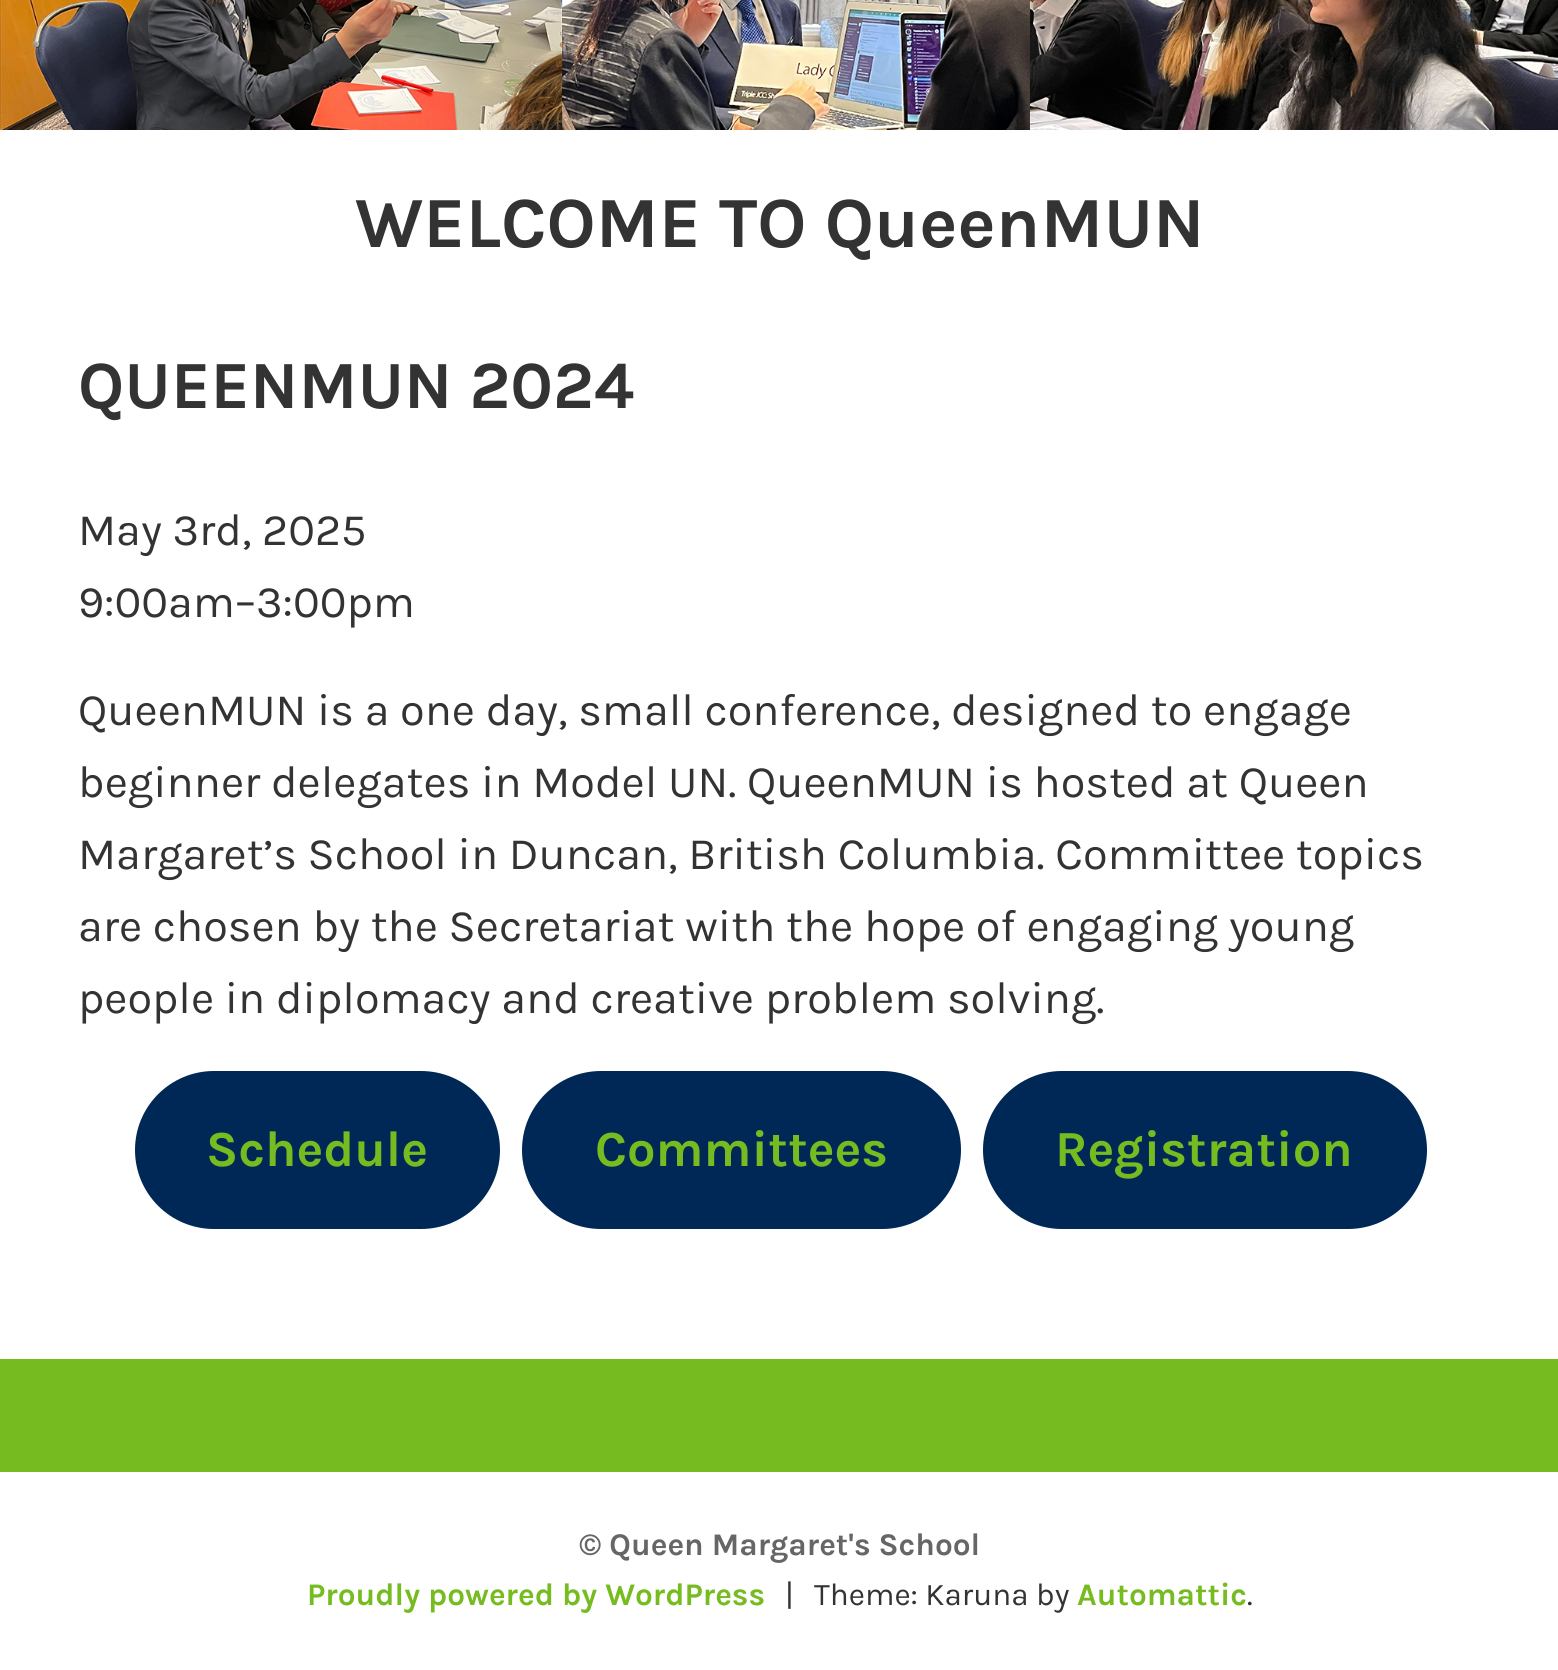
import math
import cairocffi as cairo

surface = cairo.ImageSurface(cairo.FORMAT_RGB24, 1558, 1670)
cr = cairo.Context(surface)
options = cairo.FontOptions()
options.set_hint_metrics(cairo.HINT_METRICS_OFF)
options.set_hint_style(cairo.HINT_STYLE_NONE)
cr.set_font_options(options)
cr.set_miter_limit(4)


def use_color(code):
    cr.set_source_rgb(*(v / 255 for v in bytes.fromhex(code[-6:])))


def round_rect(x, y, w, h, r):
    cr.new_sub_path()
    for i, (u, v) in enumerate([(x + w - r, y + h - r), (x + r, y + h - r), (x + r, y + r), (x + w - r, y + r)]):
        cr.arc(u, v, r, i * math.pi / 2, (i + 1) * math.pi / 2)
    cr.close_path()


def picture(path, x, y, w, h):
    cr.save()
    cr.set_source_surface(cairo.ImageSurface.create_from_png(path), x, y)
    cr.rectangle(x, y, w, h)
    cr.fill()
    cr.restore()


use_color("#ffffff")
cr.paint()
picture("img1.png", 0, 0, 1558, 130)
cr.select_font_face("Karla", cairo.FONT_SLANT_NORMAL, cairo.FONT_WEIGHT_BOLD)
cr.set_font_size(72)
use_color("#333333")
cr.move_to(355, 247)
cr.show_text("WELCOME TO QueenMUN")
cr.set_font_size(67.5)
cr.move_to(78, 408)
cr.show_text("QUEENMUN 2024")
cr.select_font_face("Karla")
cr.set_font_size(45)
cr.move_to(78, 545)
cr.show_text("May 3rd, 2025")
cr.move_to(78, 617)
cr.show_text("9:00am–3:00pm")
cr.move_to(78, 725)
cr.show_text("QueenMUN is a one day, small conference, designed to engage")
cr.move_to(78, 797)
cr.show_text("beginner delegates in Model UN. QueenMUN is hosted at Queen")
cr.move_to(78, 869)
cr.show_text("Margaret’s School in Duncan, British Columbia. Committee topics")
cr.move_to(78, 941)
cr.show_text("are chosen by the Secretariat with the hope of engaging young")
cr.move_to(78, 1013)
cr.show_text("people in diplomacy and creative problem solving.")
use_color("#002856")
round_rect(135, 1071, 365, 158, 79)
cr.fill()
cr.select_font_face("Karla", cairo.FONT_SLANT_NORMAL, cairo.FONT_WEIGHT_BOLD)
cr.set_font_size(50.5)
use_color("#76bc21")
cr.move_to(206, 1166)
cr.show_text("Schedule")
use_color("#002856")
round_rect(522, 1071, 439, 158, 79)
cr.fill()
use_color("#76bc21")
cr.move_to(595, 1166)
cr.show_text("Committees")
use_color("#002856")
round_rect(983, 1071, 444, 158, 79)
cr.fill()
use_color("#76bc21")
cr.move_to(1055, 1166)
cr.show_text("Registration")
cr.rectangle(0, 1359, 1558, 113)
cr.fill()
cr.set_font_size(31.5)
use_color("#666666")
cr.move_to(579, 1555)
cr.show_text("© Queen Margaret's School")
use_color("#76bc21")
cr.move_to(307, 1605)
cr.show_text("Proudly powered by WordPress")
cr.select_font_face("Karla")
use_color("#333333")
cr.move_to(785, 1605)
cr.show_text("|")
cr.move_to(814, 1605)
cr.show_text("Theme: Karuna by")
cr.select_font_face("Karla", cairo.FONT_SLANT_NORMAL, cairo.FONT_WEIGHT_BOLD)
use_color("#76bc21")
cr.move_to(1077, 1605)
cr.show_text("Automattic")
cr.select_font_face("Karla")
use_color("#333333")
cr.move_to(1247, 1605)
cr.show_text(".")
surface.write_to_png("result.png")
